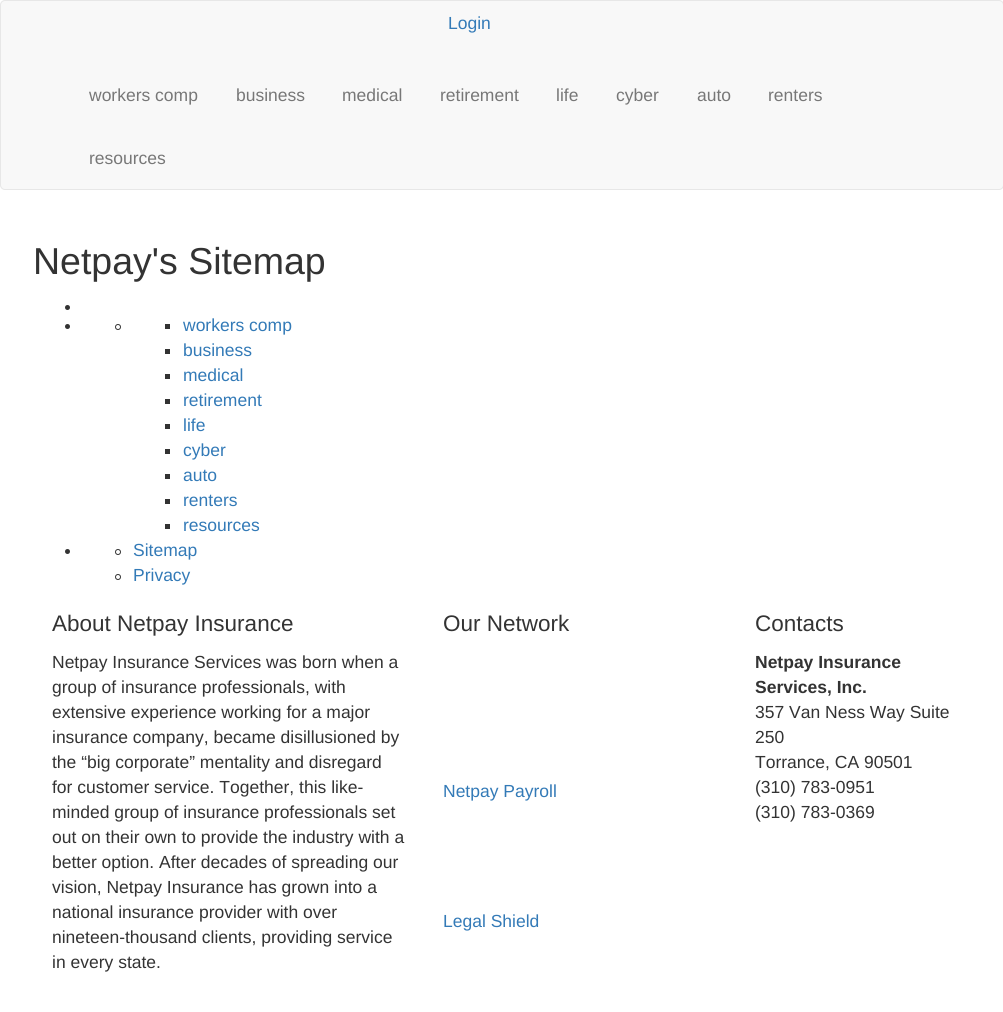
import math
import cairocffi as cairo

surface = cairo.ImageSurface(cairo.FORMAT_RGB24, 1003, 1012)
cr = cairo.Context(surface)
options = cairo.FontOptions()
options.set_hint_metrics(cairo.HINT_METRICS_OFF)
options.set_hint_style(cairo.HINT_STYLE_NONE)
cr.set_font_options(options)
cr.set_miter_limit(4)


def use_color(code):
    cr.set_source_rgb(*(v / 255 for v in bytes.fromhex(code[-6:])))


def round_rect(x, y, w, h, r):
    cr.new_sub_path()
    for i, (u, v) in enumerate([(x + w - r, y + h - r), (x + r, y + h - r), (x + r, y + r), (x + w - r, y + r)]):
        cr.arc(u, v, r, i * math.pi / 2, (i + 1) * math.pi / 2)
    cr.close_path()


use_color("#ffffff")
cr.paint()
use_color("#f8f8f8")
round_rect(0.5, 0.5, 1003, 189, 4.5)
cr.fill_preserve()
use_color("#e7e7e7")
cr.set_line_width(1)
cr.stroke()
cr.select_font_face("Liberation Sans")
cr.set_font_size(17.5)
use_color("#337ab7")
cr.move_to(448, 29)
cr.show_text("Login")
use_color("#777777")
cr.move_to(89, 101)
cr.show_text("workers comp")
cr.move_to(236, 101)
cr.show_text("business")
cr.move_to(342, 101)
cr.show_text("medical")
cr.move_to(440, 101)
cr.show_text("retirement")
cr.move_to(556, 101)
cr.show_text("life")
cr.move_to(616, 101)
cr.show_text("cyber")
cr.move_to(697, 101)
cr.show_text("auto")
cr.move_to(768, 101)
cr.show_text("renters")
cr.move_to(89, 164)
cr.show_text("resources")
cr.set_font_size(37.5)
use_color("#333333")
cr.move_to(33, 274)
cr.show_text("Netpay's Sitemap")
cr.new_path()
cr.arc(67.5, 307.5, 2.5, 0, 2 * math.pi)
cr.fill()
cr.arc(67.5, 326.5, 2.5, 0, 2 * math.pi)
cr.fill()
cr.arc(118, 327, 2.5, 0, 2 * math.pi)
cr.stroke()
cr.rectangle(165, 324, 5, 5)
cr.fill()
cr.set_font_size(17.5)
use_color("#337ab7")
cr.move_to(183, 331)
cr.show_text("workers comp")
use_color("#333333")
cr.rectangle(165, 349, 5, 5)
cr.fill()
use_color("#337ab7")
cr.move_to(183, 356)
cr.show_text("business")
use_color("#333333")
cr.rectangle(165, 374, 5, 5)
cr.fill()
use_color("#337ab7")
cr.move_to(183, 381)
cr.show_text("medical")
use_color("#333333")
cr.rectangle(165, 399, 5, 5)
cr.fill()
use_color("#337ab7")
cr.move_to(183, 406)
cr.show_text("retirement")
use_color("#333333")
cr.rectangle(165, 424, 5, 5)
cr.fill()
use_color("#337ab7")
cr.move_to(183, 431)
cr.show_text("life")
use_color("#333333")
cr.rectangle(165, 449, 5, 5)
cr.fill()
use_color("#337ab7")
cr.move_to(183, 456)
cr.show_text("cyber")
use_color("#333333")
cr.rectangle(165, 474, 5, 5)
cr.fill()
use_color("#337ab7")
cr.move_to(183, 481)
cr.show_text("auto")
use_color("#333333")
cr.rectangle(165, 499, 5, 5)
cr.fill()
use_color("#337ab7")
cr.move_to(183, 506)
cr.show_text("renters")
use_color("#333333")
cr.rectangle(165, 524, 5, 5)
cr.fill()
use_color("#337ab7")
cr.move_to(183, 531)
cr.show_text("resources")
use_color("#333333")
cr.new_path()
cr.arc(67.5, 551.5, 2.5, 0, 2 * math.pi)
cr.fill()
cr.arc(118, 552, 2.5, 0, 2 * math.pi)
cr.stroke()
use_color("#337ab7")
cr.move_to(133, 556)
cr.show_text("Sitemap")
cr.new_path()
cr.arc(118, 577, 2.5, 0, 2 * math.pi)
use_color("#333333")
cr.stroke()
use_color("#337ab7")
cr.move_to(133, 581)
cr.show_text("Privacy")
cr.set_font_size(22.5)
use_color("#333333")
cr.move_to(52, 631)
cr.show_text("About Netpay Insurance")
cr.set_font_size(17.5)
cr.move_to(52, 668)
cr.show_text("Netpay Insurance Services was born when a")
cr.move_to(52, 693)
cr.show_text("group of insurance professionals, with")
cr.move_to(52, 718)
cr.show_text("extensive experience working for a major")
cr.move_to(52, 743)
cr.show_text("insurance company, became disillusioned by")
cr.move_to(52, 768)
cr.show_text("the “big corporate” mentality and disregard")
cr.move_to(52, 793)
cr.show_text("for customer service. Together, this like-")
cr.move_to(52, 818)
cr.show_text("minded group of insurance professionals set")
cr.move_to(52, 843)
cr.show_text("out on their own to provide the industry with a")
cr.move_to(52, 868)
cr.show_text("better option. After decades of spreading our")
cr.move_to(52, 893)
cr.show_text("vision, Netpay Insurance has grown into a")
cr.move_to(52, 918)
cr.show_text("national insurance provider with over")
cr.move_to(52, 943)
cr.show_text("nineteen-thousand clients, providing service")
cr.move_to(52, 968)
cr.show_text("in every state.")
cr.set_font_size(22.5)
cr.move_to(443, 631)
cr.show_text("Our Network")
cr.set_font_size(17.5)
use_color("#337ab7")
cr.move_to(443, 797)
cr.show_text("Netpay Payroll")
cr.move_to(443, 927)
cr.show_text("Legal Shield")
cr.set_font_size(22.5)
use_color("#333333")
cr.move_to(755, 631)
cr.show_text("Contacts")
cr.select_font_face("Liberation Sans", cairo.FONT_SLANT_NORMAL, cairo.FONT_WEIGHT_BOLD)
cr.set_font_size(17.5)
cr.move_to(755, 668)
cr.show_text("Netpay Insurance")
cr.move_to(755, 693)
cr.show_text("Services, Inc.")
cr.select_font_face("Liberation Sans")
cr.move_to(755, 718)
cr.show_text("357 Van Ness Way Suite")
cr.move_to(755, 743)
cr.show_text("250")
cr.move_to(755, 768)
cr.show_text("Torrance, CA 90501")
cr.move_to(755, 793)
cr.show_text("(310) 783-0951")
cr.move_to(755, 818)
cr.show_text("(310) 783-0369")
surface.write_to_png("result.png")
